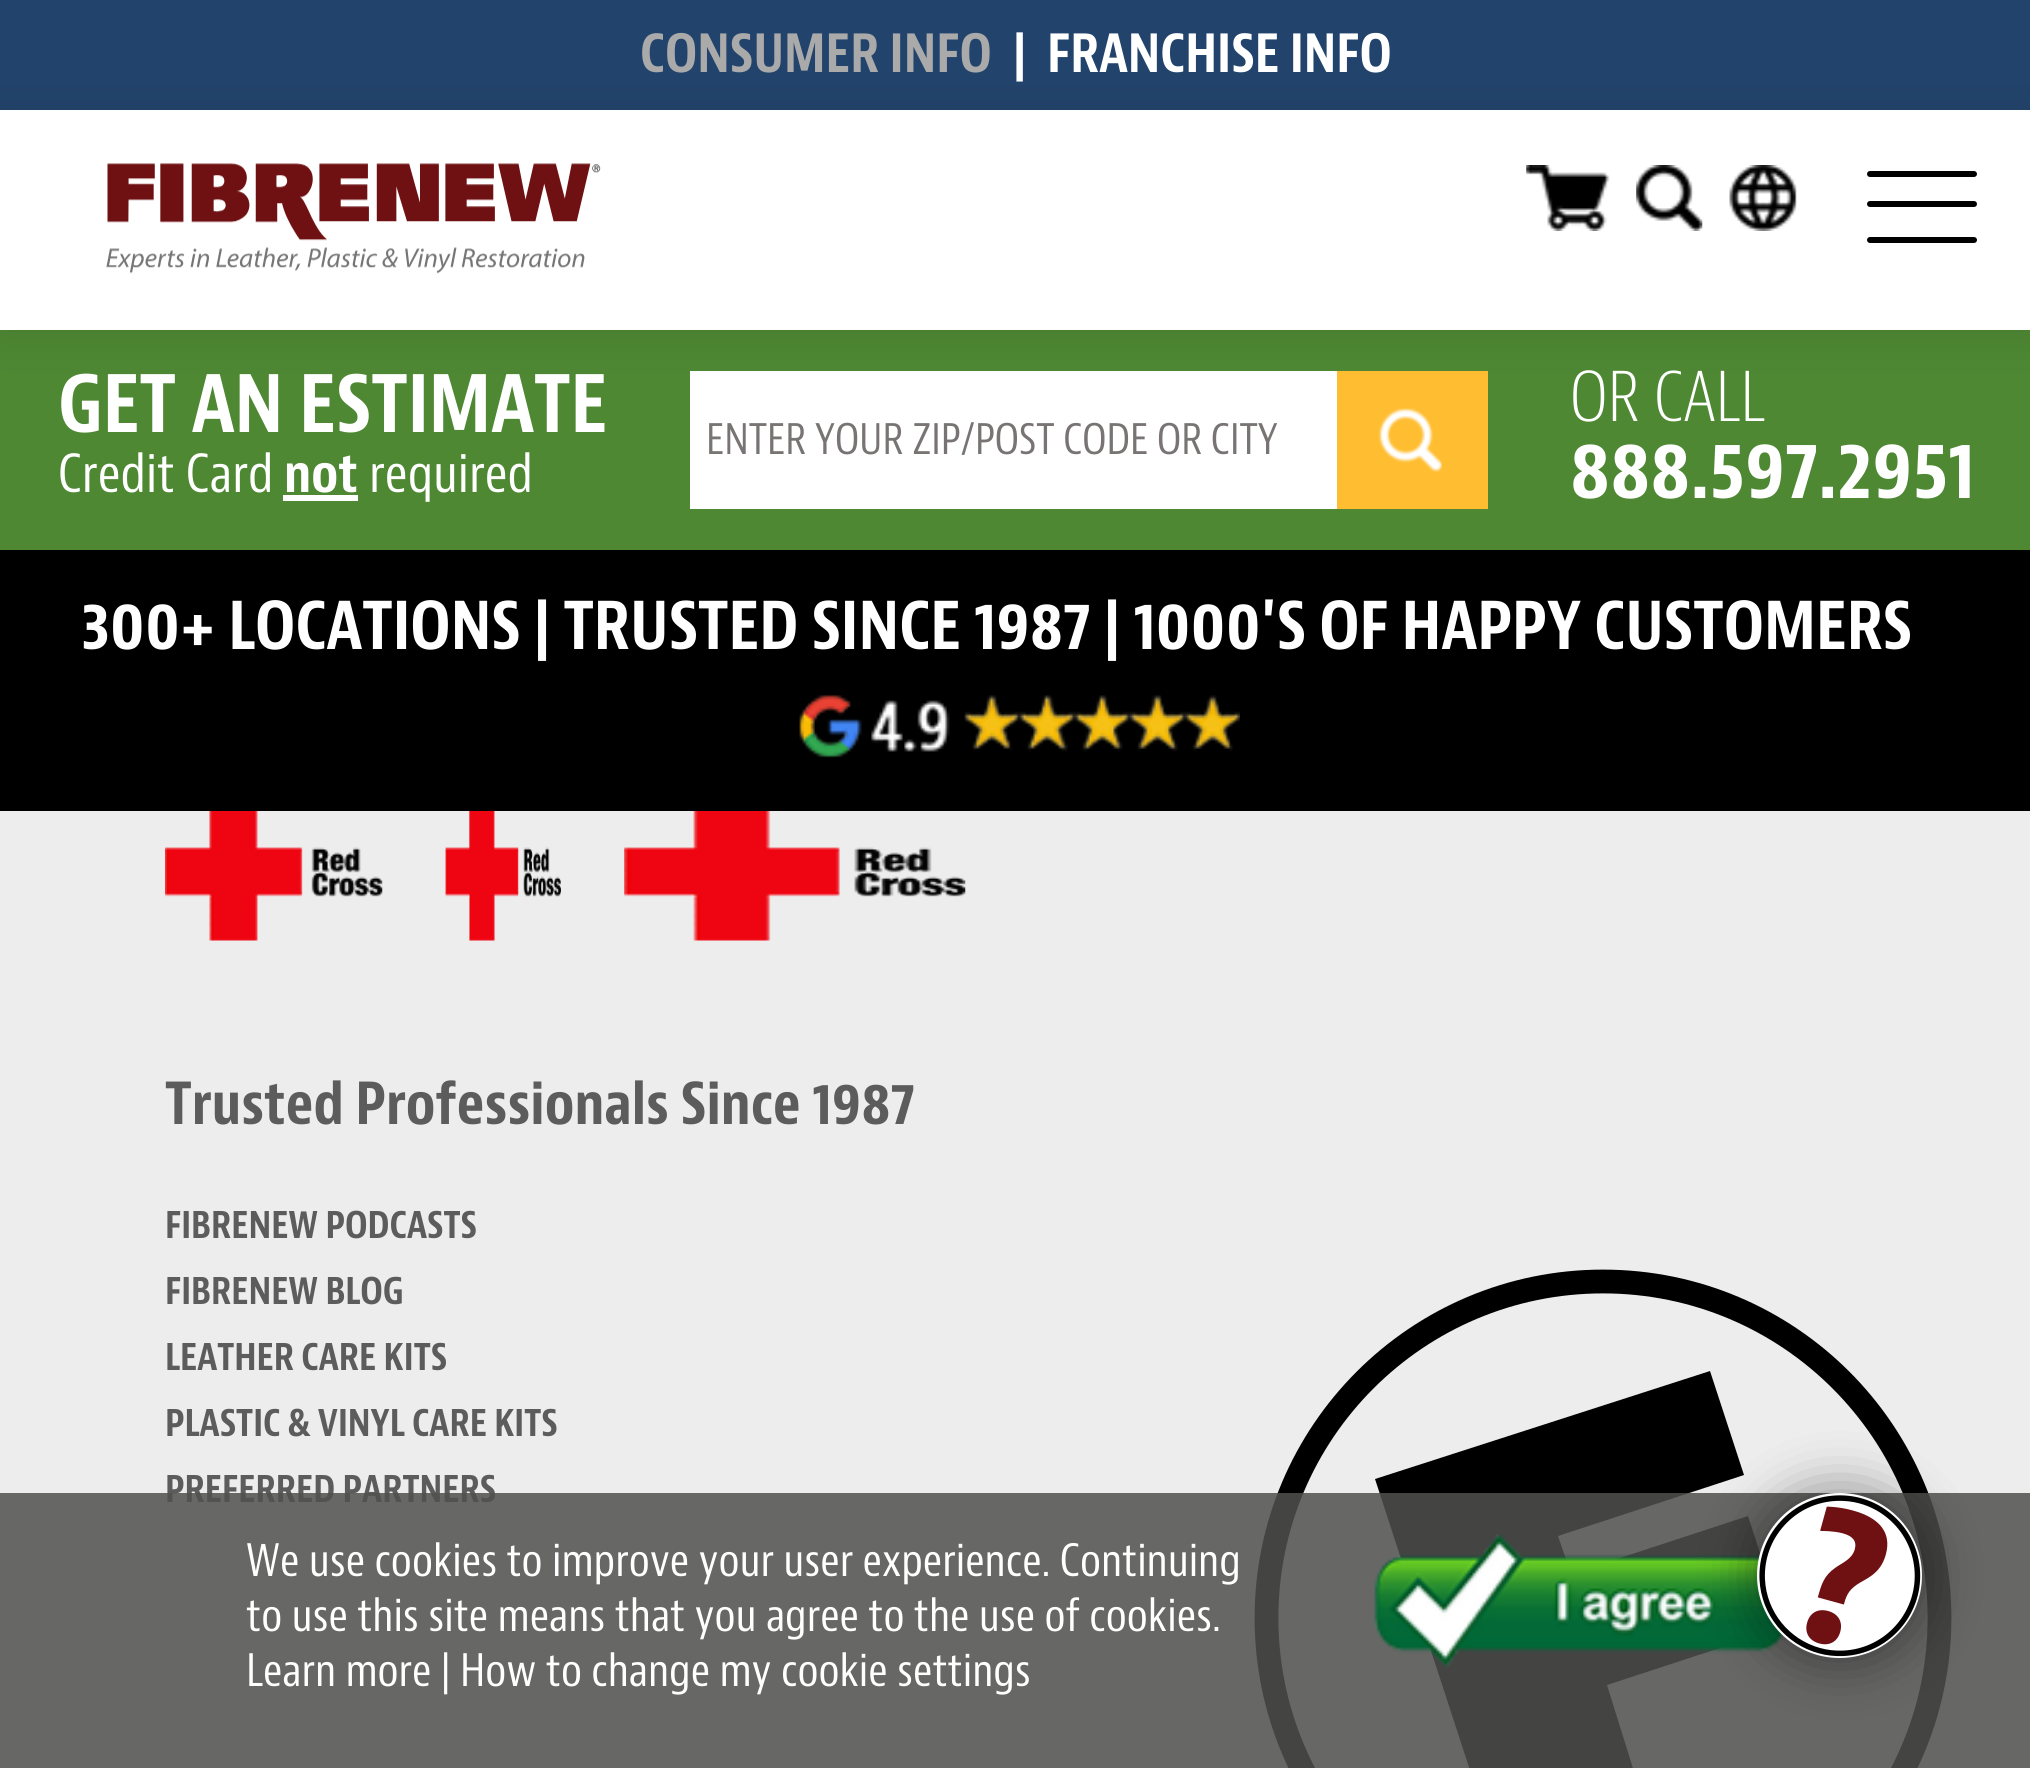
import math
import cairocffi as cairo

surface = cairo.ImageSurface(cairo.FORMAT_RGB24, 2030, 1768)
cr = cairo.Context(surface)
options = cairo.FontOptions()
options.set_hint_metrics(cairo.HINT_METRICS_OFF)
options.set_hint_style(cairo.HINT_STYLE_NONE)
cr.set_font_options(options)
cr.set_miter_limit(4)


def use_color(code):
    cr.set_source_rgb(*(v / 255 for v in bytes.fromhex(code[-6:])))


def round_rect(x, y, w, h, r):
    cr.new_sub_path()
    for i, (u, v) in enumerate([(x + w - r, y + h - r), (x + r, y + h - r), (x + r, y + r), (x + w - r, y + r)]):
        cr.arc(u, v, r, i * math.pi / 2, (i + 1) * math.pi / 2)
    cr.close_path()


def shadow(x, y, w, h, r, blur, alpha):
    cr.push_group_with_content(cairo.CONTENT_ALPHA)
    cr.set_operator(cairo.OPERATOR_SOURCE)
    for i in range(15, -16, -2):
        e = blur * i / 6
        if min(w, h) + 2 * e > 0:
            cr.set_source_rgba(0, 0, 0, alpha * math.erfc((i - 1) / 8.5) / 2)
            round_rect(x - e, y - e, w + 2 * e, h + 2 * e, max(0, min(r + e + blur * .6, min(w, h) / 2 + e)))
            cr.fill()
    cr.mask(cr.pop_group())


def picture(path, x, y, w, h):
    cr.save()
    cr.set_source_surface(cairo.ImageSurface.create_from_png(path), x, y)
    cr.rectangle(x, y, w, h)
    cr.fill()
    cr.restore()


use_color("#ededed")
cr.paint()
use_color("#22436b")
cr.rectangle(0, 0, 2030, 110)
cr.fill()
cr.select_font_face("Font", cairo.FONT_SLANT_NORMAL, cairo.FONT_WEIGHT_BOLD)
cr.set_font_size(55)
use_color("#aaaaaa")
cr.move_to(640, 72)
cr.show_text("CONSUMER INFO")
use_color("#ffffff")
cr.move_to(1013, 72)
cr.show_text("|")
cr.move_to(1047, 72)
cr.show_text("FRANCHISE INFO")
use_color("#4e8833")
cr.rectangle(0, 330, 2030, 220)
cr.fill()
use_color("#ffffff")
cr.rectangle(690, 371, 647, 138)
cr.fill()
use_color("#ffbd31")
cr.rectangle(1337, 371, 151, 138)
cr.fill()
use_color("#000000")
shadow(0, 116, 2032, 220, 0, 20.5, 0.1)
use_color("#ffffff")
cr.rectangle(0, 110, 2030, 220)
cr.fill()
picture("img1.png", 106, 163, 495, 111)
picture("img2.png", 1526, 165, 84, 66)
picture("img3.png", 1636, 165, 67, 66)
picture("img4.png", 1729, 165, 68, 66)
use_color("#000000")
round_rect(1867, 171, 110, 6, 3)
cr.fill()
round_rect(1867, 201, 110, 6, 3)
cr.fill()
round_rect(1867, 237, 110, 6, 3)
cr.fill()
cr.set_font_size(82.5)
use_color("#ffffff")
cr.move_to(58, 432)
cr.show_text("GET AN ESTIMATE")
cr.select_font_face("Font")
cr.set_font_size(55)
cr.move_to(58, 492)
cr.show_text("Credit Card")
cr.select_font_face("Font", cairo.FONT_SLANT_NORMAL, cairo.FONT_WEIGHT_BOLD)
cr.move_to(284, 492)
cr.show_text("not")
cr.rectangle(283, 495, 75, 6)
cr.fill()
cr.select_font_face("Font")
cr.move_to(369, 492)
cr.show_text("required")
cr.set_font_size(44)
use_color("#787474")
cr.move_to(706, 454)
cr.show_text("ENTER YOUR ZIP/POST CODE OR CITY")
picture("img5.png", 1378, 408, 64, 64)
cr.select_font_face("Font Light")
cr.set_font_size(71.5)
use_color("#ffffff")
cr.move_to(1570, 421)
cr.show_text("OR CALL")
cr.select_font_face("Font", cairo.FONT_SLANT_NORMAL, cairo.FONT_WEIGHT_BOLD)
cr.set_font_size(82.5)
cr.move_to(1570, 498)
cr.show_text("888.597.2951")
use_color("#000000")
cr.rectangle(0, 550, 2030, 261)
cr.fill()
cr.set_font_size(68.75)
use_color("#ffffff")
cr.move_to(81, 649)
cr.show_text("300+ LOCATIONS | TRUSTED SINCE 1987 | 1000'S OF HAPPY CUSTOMERS")
picture("img6.png", 799, 695, 441, 63)
use_color("#000000")
cr.new_path()
cr.move_to(1509, 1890)
cr.line_to(1375, 1479)
cr.line_to(1710, 1371)
cr.line_to(1744, 1475)
cr.line_to(1558, 1536)
cr.line_to(1571, 1574)
cr.line_to(1748, 1516)
cr.line_to(1784, 1627)
cr.line_to(1607, 1685)
cr.line_to(1656, 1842)
cr.close_path()
cr.fill()
cr.arc(1603, 1618, 336.5, 0, 2 * math.pi)
cr.set_line_width(23.8)
cr.stroke()
picture("img7.png", 165, 811, 218, 130)
picture("img8.png", 445, 811, 116, 130)
picture("img9.png", 624, 811, 342, 130)
cr.set_font_size(60.5)
use_color("#5c5c5c")
cr.move_to(165, 1124)
cr.show_text("Trusted Professionals Since 1987")
cr.set_font_size(38.5)
cr.move_to(165, 1238)
cr.show_text("FIBRENEW PODCASTS")
cr.move_to(165, 1304)
cr.show_text("FIBRENEW BLOG")
cr.move_to(165, 1370)
cr.show_text("LEATHER CARE KITS")
cr.move_to(165, 1436)
cr.show_text("PLASTIC & VINYL CARE KITS")
cr.move_to(165, 1502)
cr.show_text("PREFERRED PARTNERS")
cr.set_source_rgba(0.314, 0.314, 0.31, 0.85)
cr.rectangle(0, 1493, 2030, 275)
cr.fill()
cr.select_font_face("Font")
cr.set_font_size(46.75)
use_color("#ffffff")
cr.move_to(246, 1576)
cr.show_text("We use cookies to improve your user experience. Continuing")
cr.move_to(246, 1631)
cr.show_text("to use this site means that you agree to the use of cookies.")
cr.move_to(246, 1686)
cr.show_text("Learn more | How to change my cookie settings")
picture("img10.png", 1374, 1534, 411, 133)
use_color("#000000")
shadow(1749, 1485, 182, 182, 91, 25, 0.35)
use_color("#ffffff")
cr.arc(1839.5, 1575.5, 82.5, 0, 2 * math.pi)
cr.fill()
picture("img11.png", 1759, 1495, 162, 162)
surface.write_to_png("result.png")
